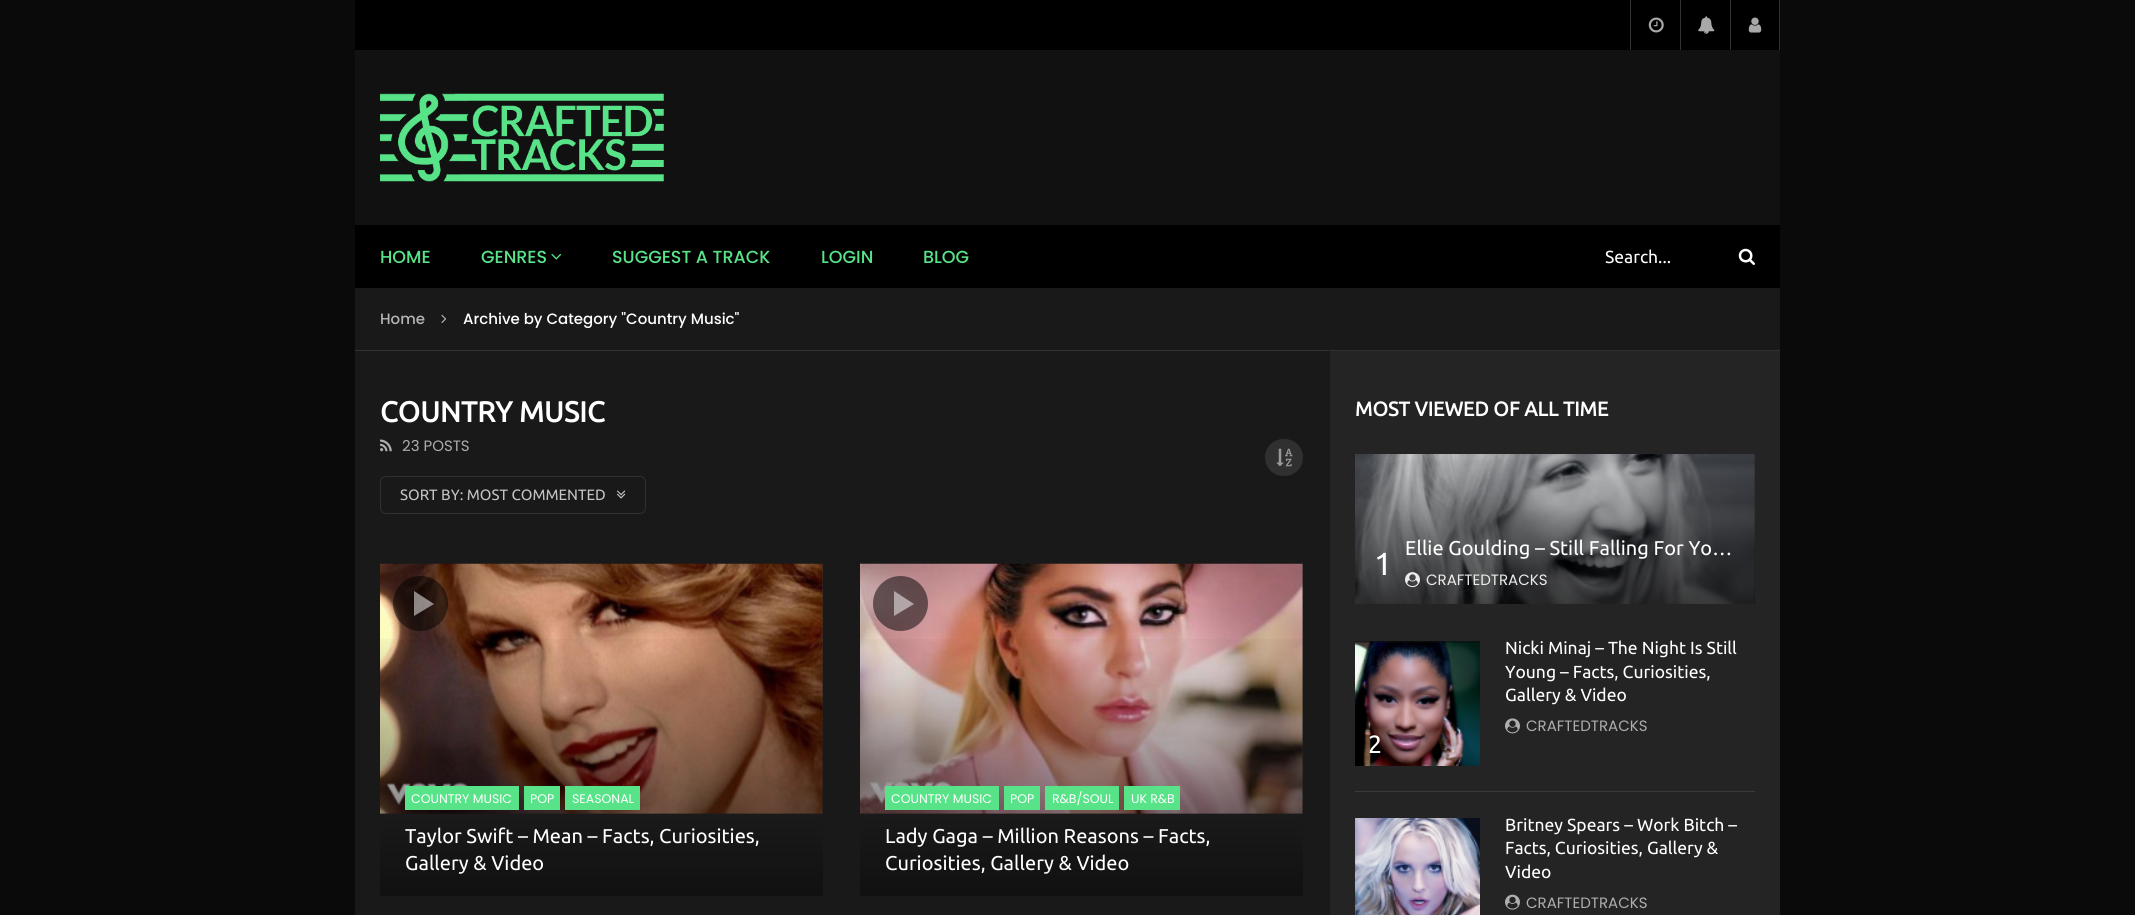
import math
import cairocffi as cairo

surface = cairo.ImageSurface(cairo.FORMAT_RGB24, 2135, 915)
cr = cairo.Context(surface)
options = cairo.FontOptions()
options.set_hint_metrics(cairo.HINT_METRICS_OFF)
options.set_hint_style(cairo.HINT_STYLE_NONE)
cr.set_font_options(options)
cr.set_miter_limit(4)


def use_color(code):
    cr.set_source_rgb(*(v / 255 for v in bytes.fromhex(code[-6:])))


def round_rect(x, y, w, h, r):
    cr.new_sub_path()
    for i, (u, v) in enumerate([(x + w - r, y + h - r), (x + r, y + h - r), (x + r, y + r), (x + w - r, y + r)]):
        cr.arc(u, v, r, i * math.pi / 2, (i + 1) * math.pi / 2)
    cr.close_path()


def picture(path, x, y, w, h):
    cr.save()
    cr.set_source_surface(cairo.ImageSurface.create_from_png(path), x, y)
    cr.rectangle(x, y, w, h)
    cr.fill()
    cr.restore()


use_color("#0a0a0a")
cr.paint()
use_color("#191919")
cr.rectangle(355, 288, 1425, 627)
cr.fill()
use_color("#000000")
cr.rectangle(355, 0, 1424, 50)
cr.fill()
use_color("#333333")
cr.rectangle(1630, 0, 1, 50)
cr.fill()
picture("img1.png", 1648, 17, 16, 16)
cr.rectangle(1680, 0, 1, 50)
cr.fill()
picture("img2.png", 1698, 16, 17, 18)
cr.rectangle(1779, 0, 1, 50)
cr.fill()
cr.rectangle(1730, 0, 1, 50)
cr.fill()
picture("img3.png", 1748, 17, 14, 16)
use_color("#111111")
cr.rectangle(355, 50, 1425, 175)
cr.fill()
picture("img4.png", 380, 93, 284, 89)
use_color("#000000")
cr.rectangle(355, 225, 1425, 63)
cr.fill()
cr.select_font_face("Poppins Medium")
cr.set_font_size(17.5)
use_color("#58e389")
cr.move_to(380, 263)
cr.show_text("HOME")
cr.move_to(481, 263)
cr.show_text("GENRES")
picture("img5.png", 551, 253, 11, 7)
cr.move_to(612, 263)
cr.show_text("SUGGEST A TRACK")
cr.move_to(821, 263)
cr.show_text("LOGIN")
cr.move_to(923, 263)
cr.show_text("BLOG")
cr.select_font_face("Ubuntu")
use_color("#ffffff")
cr.move_to(1605, 263)
cr.show_text("Search...")
picture("img6.png", 1738, 248, 17, 17)
use_color("#303030")
cr.rectangle(355, 350, 1425, 1)
cr.fill()
cr.select_font_face("Poppins Medium")
cr.set_font_size(15)
use_color("#b5b5b5")
cr.move_to(380, 324)
cr.show_text("Home")
picture("img7.png", 441, 314, 6, 9)
use_color("#ffffff")
cr.move_to(463, 324)
cr.show_text("Archive by Category \"Country Music\"")
cr.select_font_face("Ubuntu", cairo.FONT_SLANT_NORMAL, cairo.FONT_WEIGHT_BOLD)
cr.set_font_size(28.75)
cr.move_to(380, 422)
cr.show_text("COUNTRY MUSIC")
picture("img8.png", 380, 439, 12, 13)
cr.select_font_face("Poppins")
cr.set_font_size(15)
use_color("#aeaeae")
cr.move_to(402, 451)
cr.show_text("23 POSTS")
round_rect(380.5, 476.5, 265, 37, 5.5)
use_color("#303030")
cr.set_line_width(1)
cr.stroke()
cr.select_font_face("Ubuntu")
use_color("#c4c4c4")
cr.move_to(400, 500)
cr.show_text("SORT BY: MOST COMMENTED")
picture("img9.png", 616, 490, 10, 9)
use_color("#303030")
round_rect(1265, 439, 38, 37, 18.5)
cr.fill()
picture("img10.png", 1276, 448, 17, 19)
cr.rectangle(380, 564, 443, 332)
cr.fill()
picture("img11.png", 380, 563, 443, 251)
cr.set_source_rgba(0, 0, 0, 0.5)
cr.arc(420.5, 603.5, 27.5, 0, 2 * math.pi)
cr.fill()
cr.set_source_rgba(1, 1, 1, 0.5)
cr.new_path()
cr.move_to(414, 616)
cr.line_to(414, 591)
cr.line_to(434, 604)
cr.close_path()
cr.fill()
gradient = cairo.LinearGradient(601, 630, 601, 896)
gradient.add_color_stop_rgba(0, 0, 0, 0, 0)
gradient.add_color_stop_rgba(1, 0, 0, 0, 0.66)
cr.set_source(gradient)
cr.rectangle(380, 639, 443, 257)
cr.fill()
use_color("#58e389")
cr.rectangle(405, 786, 114, 24)
cr.fill()
cr.select_font_face("Poppins")
cr.set_font_size(12.5)
use_color("#ffffff")
cr.move_to(411, 803)
cr.show_text("COUNTRY MUSIC")
use_color("#58e389")
cr.rectangle(524, 786, 36, 24)
cr.fill()
use_color("#ffffff")
cr.move_to(530, 803)
cr.show_text("POP")
use_color("#58e389")
cr.rectangle(565, 786, 75, 24)
cr.fill()
use_color("#ffffff")
cr.move_to(572, 803)
cr.show_text("SEASONAL")
cr.select_font_face("Ubuntu")
cr.set_font_size(20)
cr.move_to(405, 843)
cr.show_text("Taylor Swift – Mean – Facts, Curiosities,")
cr.move_to(405, 870)
cr.show_text("Gallery & Video")
use_color("#303030")
cr.rectangle(860, 564, 443, 332)
cr.fill()
picture("img12.png", 860, 563, 443, 251)
cr.set_source_rgba(0, 0, 0, 0.5)
cr.arc(900.5, 603.5, 27.5, 0, 2 * math.pi)
cr.fill()
cr.set_source_rgba(1, 1, 1, 0.5)
cr.new_path()
cr.move_to(894, 616)
cr.line_to(894, 591)
cr.line_to(914, 604)
cr.close_path()
cr.fill()
gradient = cairo.LinearGradient(1081, 630, 1081, 896)
gradient.add_color_stop_rgba(0, 0, 0, 0, 0)
gradient.add_color_stop_rgba(1, 0, 0, 0, 0.66)
cr.set_source(gradient)
cr.rectangle(860, 639, 443, 257)
cr.fill()
use_color("#58e389")
cr.rectangle(885, 786, 114, 24)
cr.fill()
cr.select_font_face("Poppins")
cr.set_font_size(12.5)
use_color("#ffffff")
cr.move_to(891, 803)
cr.show_text("COUNTRY MUSIC")
use_color("#58e389")
cr.rectangle(1004, 786, 36, 24)
cr.fill()
use_color("#ffffff")
cr.move_to(1010, 803)
cr.show_text("POP")
use_color("#58e389")
cr.rectangle(1045, 786, 74, 24)
cr.fill()
use_color("#ffffff")
cr.move_to(1052, 803)
cr.show_text("R&B/SOUL")
use_color("#58e389")
cr.rectangle(1124, 786, 56, 24)
cr.fill()
use_color("#ffffff")
cr.move_to(1131, 803)
cr.show_text("UK R&B")
cr.select_font_face("Ubuntu")
cr.set_font_size(20)
cr.move_to(885, 843)
cr.show_text("Lady Gaga – Million Reasons – Facts,")
cr.move_to(885, 870)
cr.show_text("Curiosities, Gallery & Video")
use_color("#242424")
cr.rectangle(1330, 351, 450, 564)
cr.fill()
cr.select_font_face("Ubuntu", cairo.FONT_SLANT_NORMAL, cairo.FONT_WEIGHT_BOLD)
use_color("#ffffff")
cr.move_to(1355, 416)
cr.show_text("MOST VIEWED OF ALL TIME")
picture("img13.png", 1355, 454, 400, 150)
gradient = cairo.LinearGradient(1555, 454, 1555, 604)
gradient.add_color_stop_rgba(0, 0, 0, 0, 0)
gradient.add_color_stop_rgba(1, 0, 0, 0, 0.66)
cr.set_source(gradient)
cr.rectangle(1355, 459, 400, 145)
cr.fill()
cr.select_font_face("Ubuntu")
use_color("#ffffff")
cr.move_to(1405, 555)
cr.show_text("Ellie Goulding – Still Falling For Yo…")
cr.set_font_size(32)
cr.move_to(1374, 575)
cr.show_text("1")
picture("img14.png", 1405, 572, 15, 16)
cr.select_font_face("Poppins")
cr.set_font_size(15)
use_color("#ebebeb")
cr.move_to(1426, 585)
cr.show_text("CRAFTEDTRACKS")
use_color("#3a3a3a")
cr.rectangle(1355, 791, 400, 1)
cr.fill()
cr.select_font_face("Ubuntu")
cr.set_font_size(17.5)
use_color("#ffffff")
cr.move_to(1505, 654)
cr.show_text("Nicki Minaj – The Night Is Still")
cr.move_to(1505, 678)
cr.show_text("Young – Facts, Curiosities,")
cr.move_to(1505, 701)
cr.show_text("Gallery & Video")
picture("img15.png", 1505, 718, 15, 16)
cr.select_font_face("Poppins")
cr.set_font_size(15)
use_color("#aeaeae")
cr.move_to(1526, 731)
cr.show_text("CRAFTEDTRACKS")
picture("img16.png", 1355, 641, 125, 125)
cr.select_font_face("Ubuntu")
cr.set_font_size(25)
use_color("#ffffff")
cr.move_to(1368, 753)
cr.show_text("2")
picture("img17.png", 1355, 818, 125, 97)
cr.set_font_size(17.5)
cr.move_to(1505, 831)
cr.show_text("Britney Spears – Work Bitch –")
cr.move_to(1505, 854)
cr.show_text("Facts, Curiosities, Gallery &")
cr.move_to(1505, 878)
cr.show_text("Video")
picture("img18.png", 1505, 894, 15, 16)
cr.select_font_face("Poppins")
cr.set_font_size(15)
use_color("#aeaeae")
cr.move_to(1526, 908)
cr.show_text("CRAFTEDTRACKS")
surface.write_to_png("result.png")
